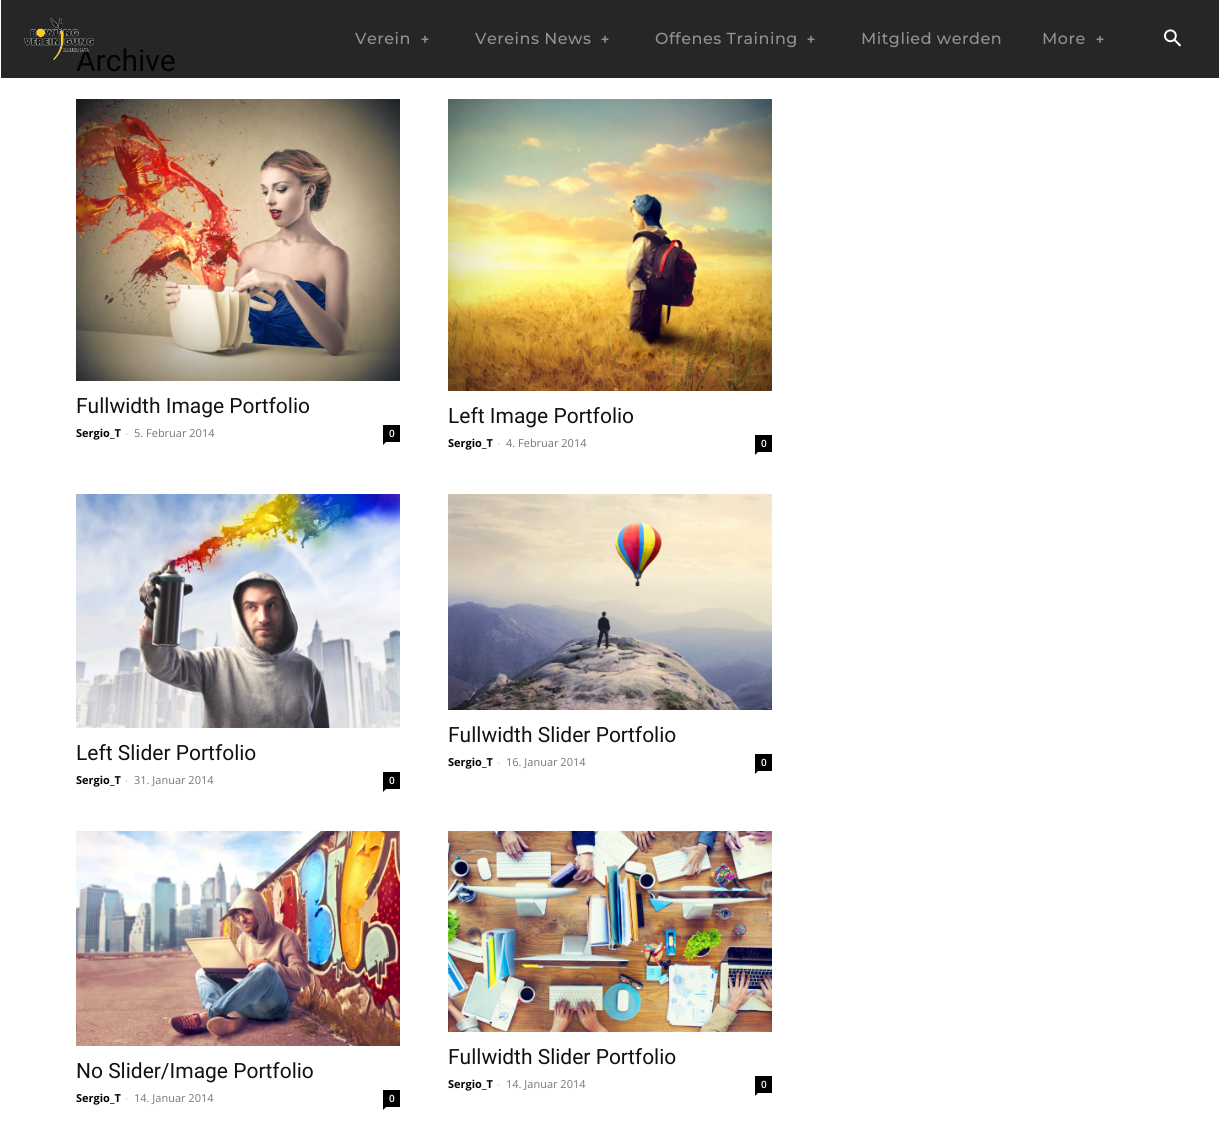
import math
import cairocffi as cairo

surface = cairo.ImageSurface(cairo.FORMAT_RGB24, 1219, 1144)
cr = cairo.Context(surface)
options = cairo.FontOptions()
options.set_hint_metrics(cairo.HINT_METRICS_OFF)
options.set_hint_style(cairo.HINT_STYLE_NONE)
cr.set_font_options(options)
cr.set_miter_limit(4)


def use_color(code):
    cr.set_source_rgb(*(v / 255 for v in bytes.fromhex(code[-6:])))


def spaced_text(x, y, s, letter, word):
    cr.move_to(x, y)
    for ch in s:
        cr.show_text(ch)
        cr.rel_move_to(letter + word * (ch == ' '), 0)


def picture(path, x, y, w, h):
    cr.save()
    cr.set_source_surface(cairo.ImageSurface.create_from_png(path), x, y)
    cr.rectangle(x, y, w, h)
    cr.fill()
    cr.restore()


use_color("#ffffff")
cr.paint()
use_color("#262626")
cr.rectangle(1, 0, 1218, 78)
cr.fill()
cr.select_font_face("Roboto")
cr.set_font_size(30)
use_color("#030303")
cr.move_to(76, 71)
cr.show_text("Archive")
picture("img1.png", 24, 18, 70, 42)
cr.select_font_face("Montserrat Thin")
cr.set_font_size(16)
use_color("#919191")
spaced_text(355, 44, "Verein", 0.5, 0)
picture("img2.png", 421, 35, 8, 8)
spaced_text(475, 44, "Vereins News", 0.5, 0)
picture("img2.png", 601, 35, 8, 8)
spaced_text(655, 44, "Offenes Training", 0.5, 0)
picture("img2.png", 807, 35, 8, 8)
spaced_text(861, 44, "Mitglied werden", 0.5, 0)
spaced_text(1042, 44, "More", 0.5, 0)
picture("img2.png", 1096, 35, 8, 8)
picture("img3.png", 1164, 29, 17, 18)
picture("img4.png", 110, 29, 3, 5)
picture("img5.png", 76, 99, 324, 282)
cr.select_font_face("Roboto")
cr.set_font_size(21)
use_color("#111111")
cr.move_to(76, 413)
cr.show_text("Fullwidth Image Portfolio")
cr.select_font_face("Open Sans", cairo.FONT_SLANT_NORMAL, cairo.FONT_WEIGHT_BOLD)
cr.set_font_size(11)
use_color("#030303")
cr.move_to(76, 437)
cr.show_text("Sergio_T")
cr.select_font_face("Open Sans")
use_color("#cccccc")
cr.move_to(125, 437)
cr.show_text("-")
use_color("#767676")
cr.move_to(134, 437)
cr.show_text("5. Februar 2014")
use_color("#000000")
cr.rectangle(383, 425, 17, 17)
cr.fill()
cr.select_font_face("Open Sans SemiBold")
cr.set_font_size(10)
use_color("#ffffff")
cr.move_to(389, 437)
cr.show_text("0")
use_color("#000000")
cr.new_path()
cr.move_to(383, 442)
cr.line_to(386, 442)
cr.line_to(383, 445)
cr.close_path()
cr.fill()
picture("img6.png", 448, 99, 324, 292)
cr.select_font_face("Roboto")
cr.set_font_size(21)
use_color("#111111")
cr.move_to(448, 423)
cr.show_text("Left Image Portfolio")
cr.select_font_face("Open Sans", cairo.FONT_SLANT_NORMAL, cairo.FONT_WEIGHT_BOLD)
cr.set_font_size(11)
use_color("#030303")
cr.move_to(448, 447)
cr.show_text("Sergio_T")
cr.select_font_face("Open Sans")
use_color("#cccccc")
cr.move_to(497, 447)
cr.show_text("-")
use_color("#767676")
cr.move_to(506, 447)
cr.show_text("4. Februar 2014")
use_color("#000000")
cr.rectangle(755, 435, 17, 17)
cr.fill()
cr.select_font_face("Open Sans SemiBold")
cr.set_font_size(10)
use_color("#ffffff")
cr.move_to(761, 447)
cr.show_text("0")
use_color("#000000")
cr.new_path()
cr.move_to(755, 452)
cr.line_to(758, 452)
cr.line_to(755, 455)
cr.close_path()
cr.fill()
picture("img7.png", 76, 494, 324, 234)
cr.select_font_face("Roboto")
cr.set_font_size(21)
use_color("#111111")
cr.move_to(76, 760)
cr.show_text("Left Slider Portfolio")
cr.select_font_face("Open Sans", cairo.FONT_SLANT_NORMAL, cairo.FONT_WEIGHT_BOLD)
cr.set_font_size(11)
use_color("#030303")
cr.move_to(76, 784)
cr.show_text("Sergio_T")
cr.select_font_face("Open Sans")
use_color("#cccccc")
cr.move_to(125, 784)
cr.show_text("-")
use_color("#767676")
cr.move_to(134, 784)
cr.show_text("31. Januar 2014")
use_color("#000000")
cr.rectangle(383, 772, 17, 17)
cr.fill()
cr.select_font_face("Open Sans SemiBold")
cr.set_font_size(10)
use_color("#ffffff")
cr.move_to(389, 784)
cr.show_text("0")
use_color("#000000")
cr.new_path()
cr.move_to(383, 789)
cr.line_to(386, 789)
cr.line_to(383, 792)
cr.close_path()
cr.fill()
picture("img8.png", 448, 494, 324, 216)
cr.select_font_face("Roboto")
cr.set_font_size(21)
use_color("#111111")
cr.move_to(448, 742)
cr.show_text("Fullwidth Slider Portfolio")
cr.select_font_face("Open Sans", cairo.FONT_SLANT_NORMAL, cairo.FONT_WEIGHT_BOLD)
cr.set_font_size(11)
use_color("#030303")
cr.move_to(448, 766)
cr.show_text("Sergio_T")
cr.select_font_face("Open Sans")
use_color("#cccccc")
cr.move_to(497, 766)
cr.show_text("-")
use_color("#767676")
cr.move_to(506, 766)
cr.show_text("16. Januar 2014")
use_color("#000000")
cr.rectangle(755, 754, 17, 17)
cr.fill()
cr.select_font_face("Open Sans SemiBold")
cr.set_font_size(10)
use_color("#ffffff")
cr.move_to(761, 766)
cr.show_text("0")
use_color("#000000")
cr.new_path()
cr.move_to(755, 771)
cr.line_to(758, 771)
cr.line_to(755, 774)
cr.close_path()
cr.fill()
picture("img9.png", 76, 831, 324, 215)
cr.select_font_face("Roboto")
cr.set_font_size(21)
use_color("#111111")
cr.move_to(76, 1078)
cr.show_text("No Slider/Image Portfolio")
cr.select_font_face("Open Sans", cairo.FONT_SLANT_NORMAL, cairo.FONT_WEIGHT_BOLD)
cr.set_font_size(11)
use_color("#030303")
cr.move_to(76, 1102)
cr.show_text("Sergio_T")
cr.select_font_face("Open Sans")
use_color("#cccccc")
cr.move_to(125, 1102)
cr.show_text("-")
use_color("#767676")
cr.move_to(134, 1102)
cr.show_text("14. Januar 2014")
use_color("#000000")
cr.rectangle(383, 1090, 17, 17)
cr.fill()
cr.select_font_face("Open Sans SemiBold")
cr.set_font_size(10)
use_color("#ffffff")
cr.move_to(389, 1102)
cr.show_text("0")
use_color("#000000")
cr.new_path()
cr.move_to(383, 1107)
cr.line_to(386, 1107)
cr.line_to(383, 1110)
cr.close_path()
cr.fill()
picture("img10.png", 448, 831, 324, 201)
cr.select_font_face("Roboto")
cr.set_font_size(21)
use_color("#111111")
cr.move_to(448, 1064)
cr.show_text("Fullwidth Slider Portfolio")
cr.select_font_face("Open Sans", cairo.FONT_SLANT_NORMAL, cairo.FONT_WEIGHT_BOLD)
cr.set_font_size(11)
use_color("#030303")
cr.move_to(448, 1088)
cr.show_text("Sergio_T")
cr.select_font_face("Open Sans")
use_color("#cccccc")
cr.move_to(497, 1088)
cr.show_text("-")
use_color("#767676")
cr.move_to(506, 1088)
cr.show_text("14. Januar 2014")
use_color("#000000")
cr.rectangle(755, 1076, 17, 17)
cr.fill()
cr.select_font_face("Open Sans SemiBold")
cr.set_font_size(10)
use_color("#ffffff")
cr.move_to(761, 1088)
cr.show_text("0")
use_color("#000000")
cr.new_path()
cr.move_to(755, 1093)
cr.line_to(758, 1093)
cr.line_to(755, 1096)
cr.close_path()
cr.fill()
surface.write_to_png("result.png")
